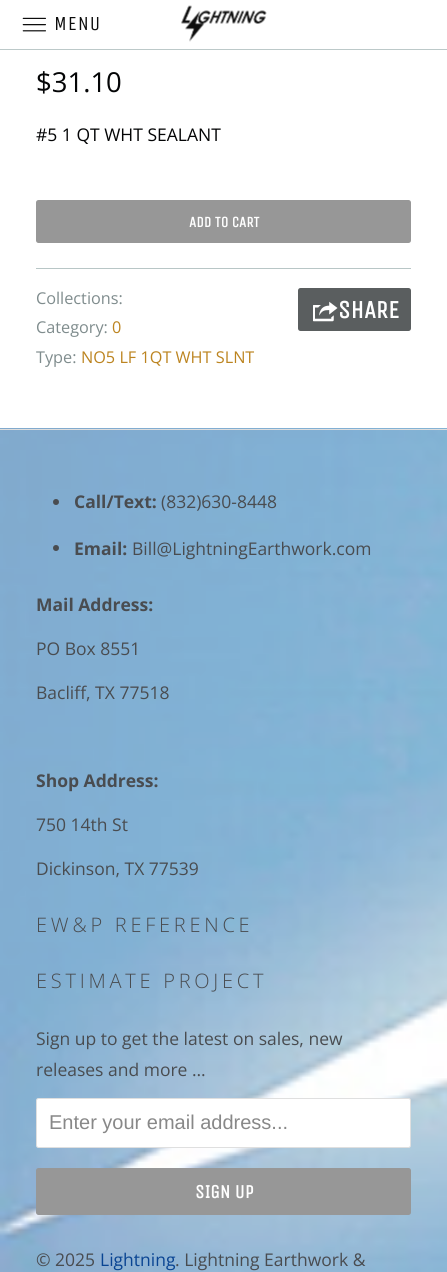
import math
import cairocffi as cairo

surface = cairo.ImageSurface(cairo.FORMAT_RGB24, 447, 1272)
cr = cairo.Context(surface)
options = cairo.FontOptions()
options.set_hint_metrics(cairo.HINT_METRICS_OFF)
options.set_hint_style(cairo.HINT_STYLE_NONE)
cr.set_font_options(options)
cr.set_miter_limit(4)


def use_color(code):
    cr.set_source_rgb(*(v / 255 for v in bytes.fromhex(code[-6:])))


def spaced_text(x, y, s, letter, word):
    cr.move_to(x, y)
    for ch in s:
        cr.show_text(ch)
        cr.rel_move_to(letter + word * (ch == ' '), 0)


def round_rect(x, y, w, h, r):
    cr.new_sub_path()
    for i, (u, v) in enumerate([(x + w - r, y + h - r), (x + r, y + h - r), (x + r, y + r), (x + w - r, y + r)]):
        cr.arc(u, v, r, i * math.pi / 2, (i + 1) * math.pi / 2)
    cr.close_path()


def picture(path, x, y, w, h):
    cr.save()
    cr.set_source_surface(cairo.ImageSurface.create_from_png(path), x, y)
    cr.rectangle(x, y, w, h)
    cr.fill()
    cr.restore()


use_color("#ffffff")
cr.paint()
use_color("#bcc9c9")
cr.rectangle(0, 49, 447, 1)
cr.fill()
picture("img1.png", 22, 17, 24, 15)
cr.select_font_face("Unica One")
cr.set_font_size(20)
use_color("#0d0d0d")
spaced_text(54, 30, "MENU", 1, 0)
picture("img2.png", 181, 5, 86, 37)
cr.select_font_face("Open Sans")
cr.set_font_size(27.5)
use_color("#040506")
cr.move_to(36, 92)
cr.show_text("$31.10")
cr.set_font_size(17.5)
cr.move_to(36, 141)
cr.show_text("#5 1 QT WHT SEALANT")
use_color("#979797")
round_rect(36, 200, 375, 43, 2.5)
cr.fill()
cr.select_font_face("Unica One", cairo.FONT_SLANT_NORMAL, cairo.FONT_WEIGHT_BOLD)
cr.set_font_size(15)
use_color("#ffffff")
cr.move_to(189, 227)
cr.show_text("ADD TO CART")
use_color("#b8c6c6")
cr.rectangle(36, 268, 375, 1)
cr.fill()
cr.select_font_face("Open Sans")
cr.set_font_size(16.25)
use_color("#7f8c8d")
cr.move_to(36, 304)
cr.show_text("Collections:")
use_color("#5a5e5f")
round_rect(298, 288, 113, 43, 2.5)
cr.fill()
picture("img3.png", 313, 301, 25, 21)
cr.select_font_face("Unica One", cairo.FONT_SLANT_NORMAL, cairo.FONT_WEIGHT_BOLD)
cr.set_font_size(25)
use_color("#ffffff")
cr.move_to(338, 318)
cr.show_text("SHARE")
cr.select_font_face("Open Sans")
cr.set_font_size(16.25)
use_color("#7f8c8d")
cr.move_to(36, 333)
cr.show_text("Category:")
use_color("#bc8420")
cr.move_to(112, 333)
cr.show_text("0")
use_color("#7f8c8d")
cr.move_to(36, 363)
cr.show_text("Type:")
use_color("#bc8420")
cr.move_to(81, 363)
cr.show_text("NO5 LF 1QT WHT SLNT")
picture("img4.png", 0, 428, 447, 844)
use_color("#dddddd")
cr.rectangle(0, 429, 447, 1)
cr.fill()
use_color("#494c50")
cr.arc(56, 502, 3, 0, 2 * math.pi)
cr.fill()
cr.select_font_face("Open Sans", cairo.FONT_SLANT_NORMAL, cairo.FONT_WEIGHT_BOLD)
cr.set_font_size(17.5)
cr.move_to(74, 508)
cr.show_text("Call/Text:")
cr.select_font_face("Open Sans")
cr.move_to(161, 508)
cr.show_text("(832)630-8448")
cr.new_path()
cr.arc(56, 548, 3, 0, 2 * math.pi)
cr.fill()
cr.select_font_face("Open Sans", cairo.FONT_SLANT_NORMAL, cairo.FONT_WEIGHT_BOLD)
cr.move_to(74, 555)
cr.show_text("Email:")
cr.select_font_face("Open Sans")
cr.move_to(132, 555)
cr.show_text("Bill@LightningEarthwork.com")
cr.select_font_face("Open Sans", cairo.FONT_SLANT_NORMAL, cairo.FONT_WEIGHT_BOLD)
cr.move_to(36, 611)
cr.show_text("Mail Address:")
cr.select_font_face("Open Sans")
cr.move_to(36, 655)
cr.show_text("PO Box 8551")
cr.move_to(36, 699)
cr.show_text("Bacliff, TX 77518")
cr.select_font_face("Open Sans", cairo.FONT_SLANT_NORMAL, cairo.FONT_WEIGHT_BOLD)
cr.move_to(36, 787)
cr.show_text("Shop Address:")
cr.select_font_face("Open Sans")
cr.move_to(36, 831)
cr.show_text("750 14th St")
cr.move_to(36, 875)
cr.show_text("Dickinson, TX 77539")
cr.select_font_face("Open Sans Light")
cr.set_font_size(20)
spaced_text(36, 932, "EW&P REFERENCE", 3.75, 0)
spaced_text(36, 988, "ESTIMATE PROJECT", 3.75, 0)
cr.select_font_face("Open Sans")
cr.set_font_size(17.5)
cr.move_to(36, 1045)
cr.show_text("Sign up to get the latest on sales, new")
cr.move_to(36, 1076)
cr.show_text("releases and more …")
use_color("#ffffff")
round_rect(36.5, 1098.5, 374, 49, 2)
cr.fill_preserve()
use_color("#dfdfdf")
cr.set_line_width(1)
cr.stroke()
cr.select_font_face("Liberation Sans")
cr.set_font_size(20)
use_color("#888888")
cr.move_to(49, 1129)
cr.show_text("Enter your email address...")
use_color("#979797")
round_rect(36, 1168, 375, 47, 2.5)
cr.fill()
cr.select_font_face("Unica One", cairo.FONT_SLANT_NORMAL, cairo.FONT_WEIGHT_BOLD)
cr.set_font_size(19)
use_color("#ffffff")
cr.move_to(195, 1198)
cr.show_text("SIGN UP")
cr.select_font_face("Open Sans")
cr.set_font_size(17.5)
use_color("#494c50")
cr.move_to(36, 1266)
cr.show_text("© 2025")
use_color("#094492")
cr.move_to(100, 1266)
cr.show_text("Lightning")
use_color("#494c50")
cr.move_to(175, 1266)
cr.show_text(". Lightning Earthwork &")
surface.write_to_png("result.png")
